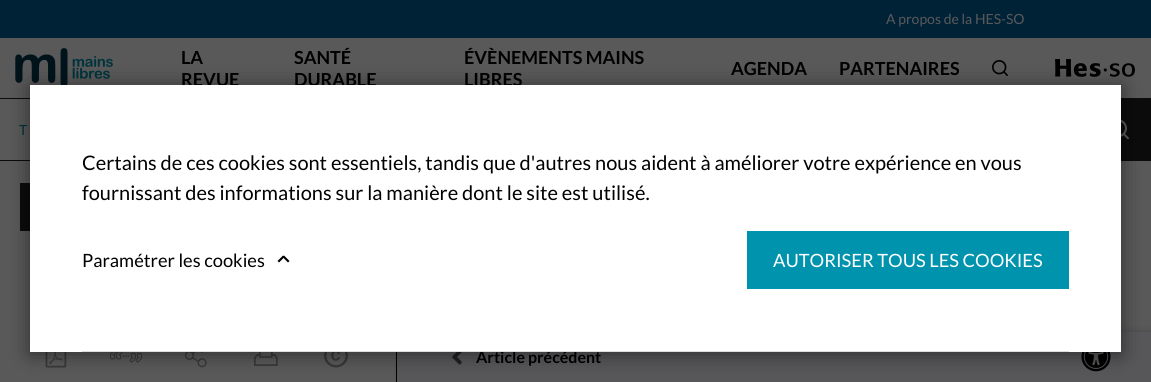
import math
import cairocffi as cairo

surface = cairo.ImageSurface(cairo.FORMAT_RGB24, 1151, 382)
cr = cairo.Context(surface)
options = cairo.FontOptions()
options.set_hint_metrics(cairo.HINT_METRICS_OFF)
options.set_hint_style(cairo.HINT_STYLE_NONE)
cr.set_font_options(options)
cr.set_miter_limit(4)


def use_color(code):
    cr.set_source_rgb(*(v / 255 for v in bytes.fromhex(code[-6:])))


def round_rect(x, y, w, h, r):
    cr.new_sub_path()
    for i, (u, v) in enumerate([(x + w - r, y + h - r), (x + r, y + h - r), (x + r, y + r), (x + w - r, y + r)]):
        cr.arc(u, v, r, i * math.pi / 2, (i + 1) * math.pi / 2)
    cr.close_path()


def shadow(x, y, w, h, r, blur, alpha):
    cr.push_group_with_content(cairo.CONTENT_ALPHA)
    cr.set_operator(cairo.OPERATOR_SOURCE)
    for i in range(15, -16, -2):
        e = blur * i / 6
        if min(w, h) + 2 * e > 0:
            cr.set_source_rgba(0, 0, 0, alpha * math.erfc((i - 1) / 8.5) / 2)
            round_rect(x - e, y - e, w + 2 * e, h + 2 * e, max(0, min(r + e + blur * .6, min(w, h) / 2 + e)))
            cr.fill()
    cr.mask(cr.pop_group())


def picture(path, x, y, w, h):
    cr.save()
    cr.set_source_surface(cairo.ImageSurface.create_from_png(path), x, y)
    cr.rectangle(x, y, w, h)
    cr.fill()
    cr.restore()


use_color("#595959")
cr.paint()
use_color("#0c0c0c")
cr.rectangle(0, 98, 1151, 1)
cr.fill()
use_color("#002237")
cr.rectangle(0, 0, 1151, 38)
cr.fill()
cr.select_font_face("Lato")
cr.set_font_size(14)
use_color("#595959")
cr.move_to(886, 24)
cr.show_text("A propos de la HES-SO")
picture("img1.png", 15, 48, 98, 37)
cr.select_font_face("Lato", cairo.FONT_SLANT_NORMAL, cairo.FONT_WEIGHT_BOLD)
cr.set_font_size(18)
use_color("#000000")
cr.move_to(181, 64)
cr.show_text("LA")
cr.move_to(181, 86)
cr.show_text("REVUE")
cr.move_to(294, 64)
cr.show_text("SANTÉ")
cr.move_to(294, 86)
cr.show_text("DURABLE")
cr.move_to(464, 64)
cr.show_text("ÉVÈNEMENTS MAINS")
cr.move_to(464, 86)
cr.show_text("LIBRES")
cr.move_to(731, 75)
cr.show_text("AGENDA")
cr.move_to(839, 75)
cr.show_text("PARTENAIRES")
picture("img2.png", 992, 60, 16, 16)
picture("img3.png", 1055, 59, 80, 18)
use_color("#0b0b0b")
cr.rectangle(0, 160, 1151, 1)
cr.fill()
cr.select_font_face("Lato")
cr.set_font_size(14)
use_color("#00333d")
cr.move_to(19, 135)
cr.show_text("T")
use_color("#0b0b0b")
cr.rectangle(1121, 99, 30, 61)
cr.fill()
picture("img4.png", 1121, 119, 8, 21)
use_color("#000000")
cr.rectangle(396, 352, 1, 30)
cr.fill()
use_color("#0b0b0b")
cr.rectangle(20, 183, 10, 48)
cr.fill()
picture("img5.png", 45, 352, 22, 16)
picture("img6.png", 110, 352, 33, 11)
picture("img7.png", 184, 352, 23, 16)
picture("img8.png", 254, 352, 24, 14)
picture("img9.png", 324, 352, 24, 16)
use_color("#000000")
shadow(400, 332, 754, 50, 0, 3.5, 0.2)
use_color("#575759")
cr.rectangle(397, 332, 754, 50)
cr.fill()
picture("img10.png", 452, 352, 10, 13)
cr.select_font_face("Lato", cairo.FONT_SLANT_NORMAL, cairo.FONT_WEIGHT_BOLD)
cr.set_font_size(16)
use_color("#000000")
cr.move_to(476, 363)
cr.show_text("Article précédent")
picture("img11.png", 1081, 352, 30, 20)
use_color("#000000")
shadow(30, 87, 1091, 267, 0, 10, 0.5)
use_color("#ffffff")
cr.rectangle(30, 85, 1091, 267)
cr.fill()
use_color("#dddddd")
cr.rectangle(82, 351, 987, 1)
cr.fill()
cr.select_font_face("Lato")
cr.set_font_size(20)
use_color("#000000")
cr.move_to(82, 170)
cr.show_text("Certains de ces cookies sont essentiels, tandis que d'autres nous aident à améliorer votre expérience en vous")
cr.move_to(82, 200)
cr.show_text("fournissant des informations sur la manière dont le site est utilisé.")
cr.set_font_size(18.3)
cr.move_to(82, 267)
cr.show_text("Paramétrer les cookies")
cr.new_path()
cr.move_to(284, 255.5)
cr.line_to(289.5, 261)
cr.line_to(288, 262.5)
cr.line_to(282.5, 257)
cr.close_path()
cr.fill()
cr.new_path()
cr.move_to(277.5, 261)
cr.line_to(283, 255.5)
cr.line_to(284.5, 257)
cr.line_to(279, 262.5)
cr.close_path()
cr.fill()
use_color("#0093ae")
cr.rectangle(747, 231, 322, 58)
cr.fill()
use_color("#ffffff")
cr.move_to(773, 267)
cr.show_text("AUTORISER TOUS LES COOKIES")
surface.write_to_png("result.png")
